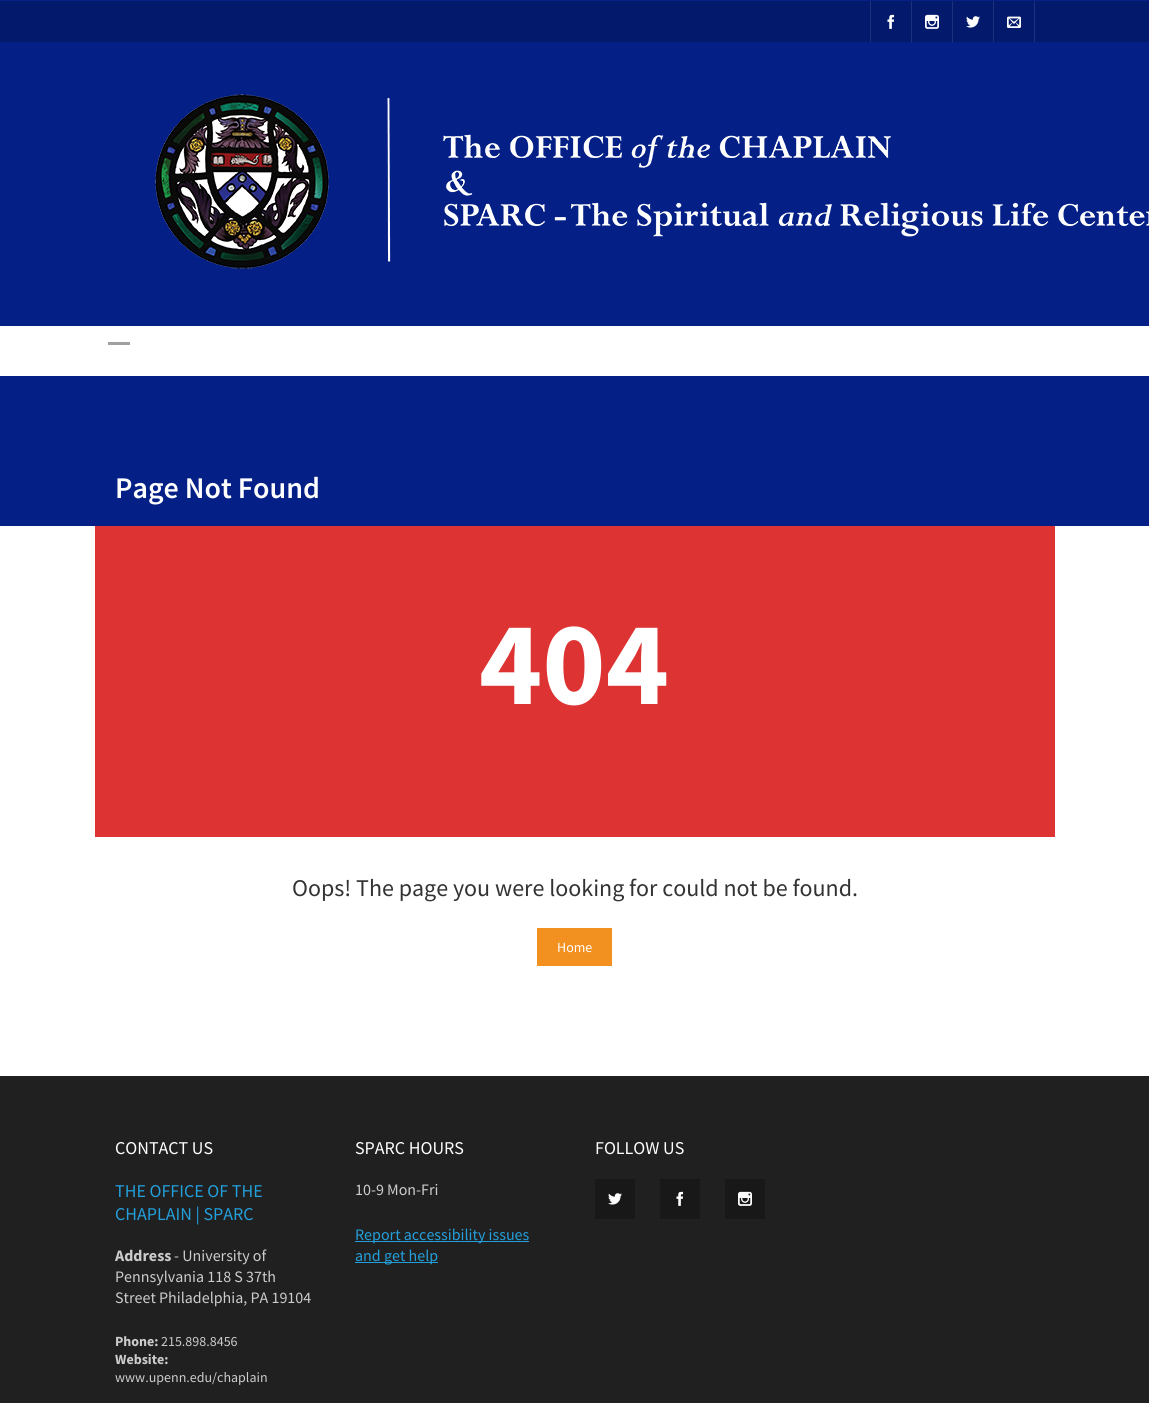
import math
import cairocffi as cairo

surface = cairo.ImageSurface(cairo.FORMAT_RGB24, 1149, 1403)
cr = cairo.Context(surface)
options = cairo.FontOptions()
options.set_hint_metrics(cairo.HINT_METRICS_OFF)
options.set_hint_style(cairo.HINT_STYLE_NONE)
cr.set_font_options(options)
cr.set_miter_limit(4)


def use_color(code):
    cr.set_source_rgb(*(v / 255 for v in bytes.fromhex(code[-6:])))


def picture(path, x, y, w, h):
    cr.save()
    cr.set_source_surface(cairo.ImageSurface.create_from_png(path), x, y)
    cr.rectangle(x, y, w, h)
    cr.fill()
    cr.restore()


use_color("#ffffff")
cr.paint()
use_color("#042087")
cr.rectangle(0, 0, 1149, 526)
cr.fill()
use_color("#031a6c")
cr.rectangle(0, 1, 1149, 41)
cr.fill()
use_color("#1c317b")
cr.rectangle(870, 1, 1, 41)
cr.fill()
picture("img1.png", 887, 14, 8, 15)
cr.rectangle(911, 1, 1, 41)
cr.fill()
picture("img2.png", 925, 14, 14, 15)
cr.rectangle(952, 1, 1, 41)
cr.fill()
picture("img3.png", 966, 16, 14, 12)
cr.rectangle(1034, 1, 1, 41)
cr.fill()
cr.rectangle(993, 1, 1, 41)
cr.fill()
picture("img4.png", 1007, 16, 14, 12)
picture("img5.png", 155, 94, 994, 175)
use_color("#ffffff")
cr.rectangle(0, 326, 1149, 50)
cr.fill()
use_color("#a0a0a0")
cr.rectangle(108, 342, 22, 3)
cr.fill()
cr.select_font_face("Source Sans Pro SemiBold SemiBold")
cr.set_font_size(30)
use_color("#ffffff")
cr.move_to(115, 498)
cr.show_text("Page Not Found")
use_color("#dd3333")
cr.rectangle(95, 526, 960, 311)
cr.fill()
cr.select_font_face("Source Sans Pro", cairo.FONT_SLANT_NORMAL, cairo.FONT_WEIGHT_BOLD)
cr.set_font_size(120)
use_color("#ffffff")
cr.move_to(479, 704)
cr.show_text("404")
cr.select_font_face("Source Sans Pro")
cr.set_font_size(24)
use_color("#333333")
cr.move_to(292, 896)
cr.show_text("Oops! The page you were looking for could not be found.")
use_color("#f29120")
cr.rectangle(537, 928, 75, 38)
cr.fill()
cr.set_font_size(14)
use_color("#ffffff")
cr.move_to(557, 952)
cr.show_text("Home")
use_color("#202020")
cr.rectangle(0, 1076, 1149, 327)
cr.fill()
cr.set_font_size(18)
use_color("#ffffff")
cr.move_to(115, 1154)
cr.show_text("CONTACT US")
use_color("#239fdb")
cr.move_to(115, 1197)
cr.show_text("THE OFFICE OF THE")
cr.move_to(115, 1220)
cr.show_text("CHAPLAIN | SPARC")
cr.select_font_face("Source Sans Pro", cairo.FONT_SLANT_NORMAL, cairo.FONT_WEIGHT_BOLD)
cr.set_font_size(16)
use_color("#cccccc")
cr.move_to(115, 1261)
cr.show_text("Address")
cr.select_font_face("Source Sans Pro")
cr.move_to(174, 1261)
cr.show_text("- University of")
cr.move_to(115, 1282)
cr.show_text("Pennsylvania 118 S 37th")
cr.move_to(115, 1303)
cr.show_text("Street Philadelphia, PA 19104")
cr.select_font_face("Source Sans Pro", cairo.FONT_SLANT_NORMAL, cairo.FONT_WEIGHT_BOLD)
cr.set_font_size(14)
cr.move_to(115, 1346)
cr.show_text("Phone:")
cr.select_font_face("Source Sans Pro")
cr.move_to(161, 1346)
cr.show_text("215.898.8456")
cr.select_font_face("Source Sans Pro", cairo.FONT_SLANT_NORMAL, cairo.FONT_WEIGHT_BOLD)
cr.move_to(115, 1364)
cr.show_text("Website:")
cr.select_font_face("Source Sans Pro")
cr.move_to(115, 1382)
cr.show_text("www.upenn.edu/chaplain")
cr.set_font_size(18)
use_color("#ffffff")
cr.move_to(355, 1154)
cr.show_text("SPARC HOURS")
cr.set_font_size(16)
use_color("#cccccc")
cr.move_to(355, 1195)
cr.show_text("10-9 Mon-Fri")
use_color("#239fdb")
cr.rectangle(355, 1241, 174, 1)
cr.fill()
cr.move_to(355, 1240)
cr.show_text("Report accessibility issues")
cr.rectangle(355, 1262, 83, 1)
cr.fill()
cr.move_to(355, 1261)
cr.show_text("and get help")
cr.set_font_size(18)
use_color("#ffffff")
cr.move_to(595, 1154)
cr.show_text("FOLLOW US")
use_color("#181818")
cr.rectangle(595, 1179, 40, 40)
cr.fill()
picture("img6.png", 608, 1193, 14, 12)
cr.rectangle(660, 1179, 40, 40)
cr.fill()
picture("img7.png", 676, 1191, 8, 15)
cr.rectangle(725, 1179, 40, 40)
cr.fill()
picture("img8.png", 738, 1191, 14, 15)
surface.write_to_png("result.png")
